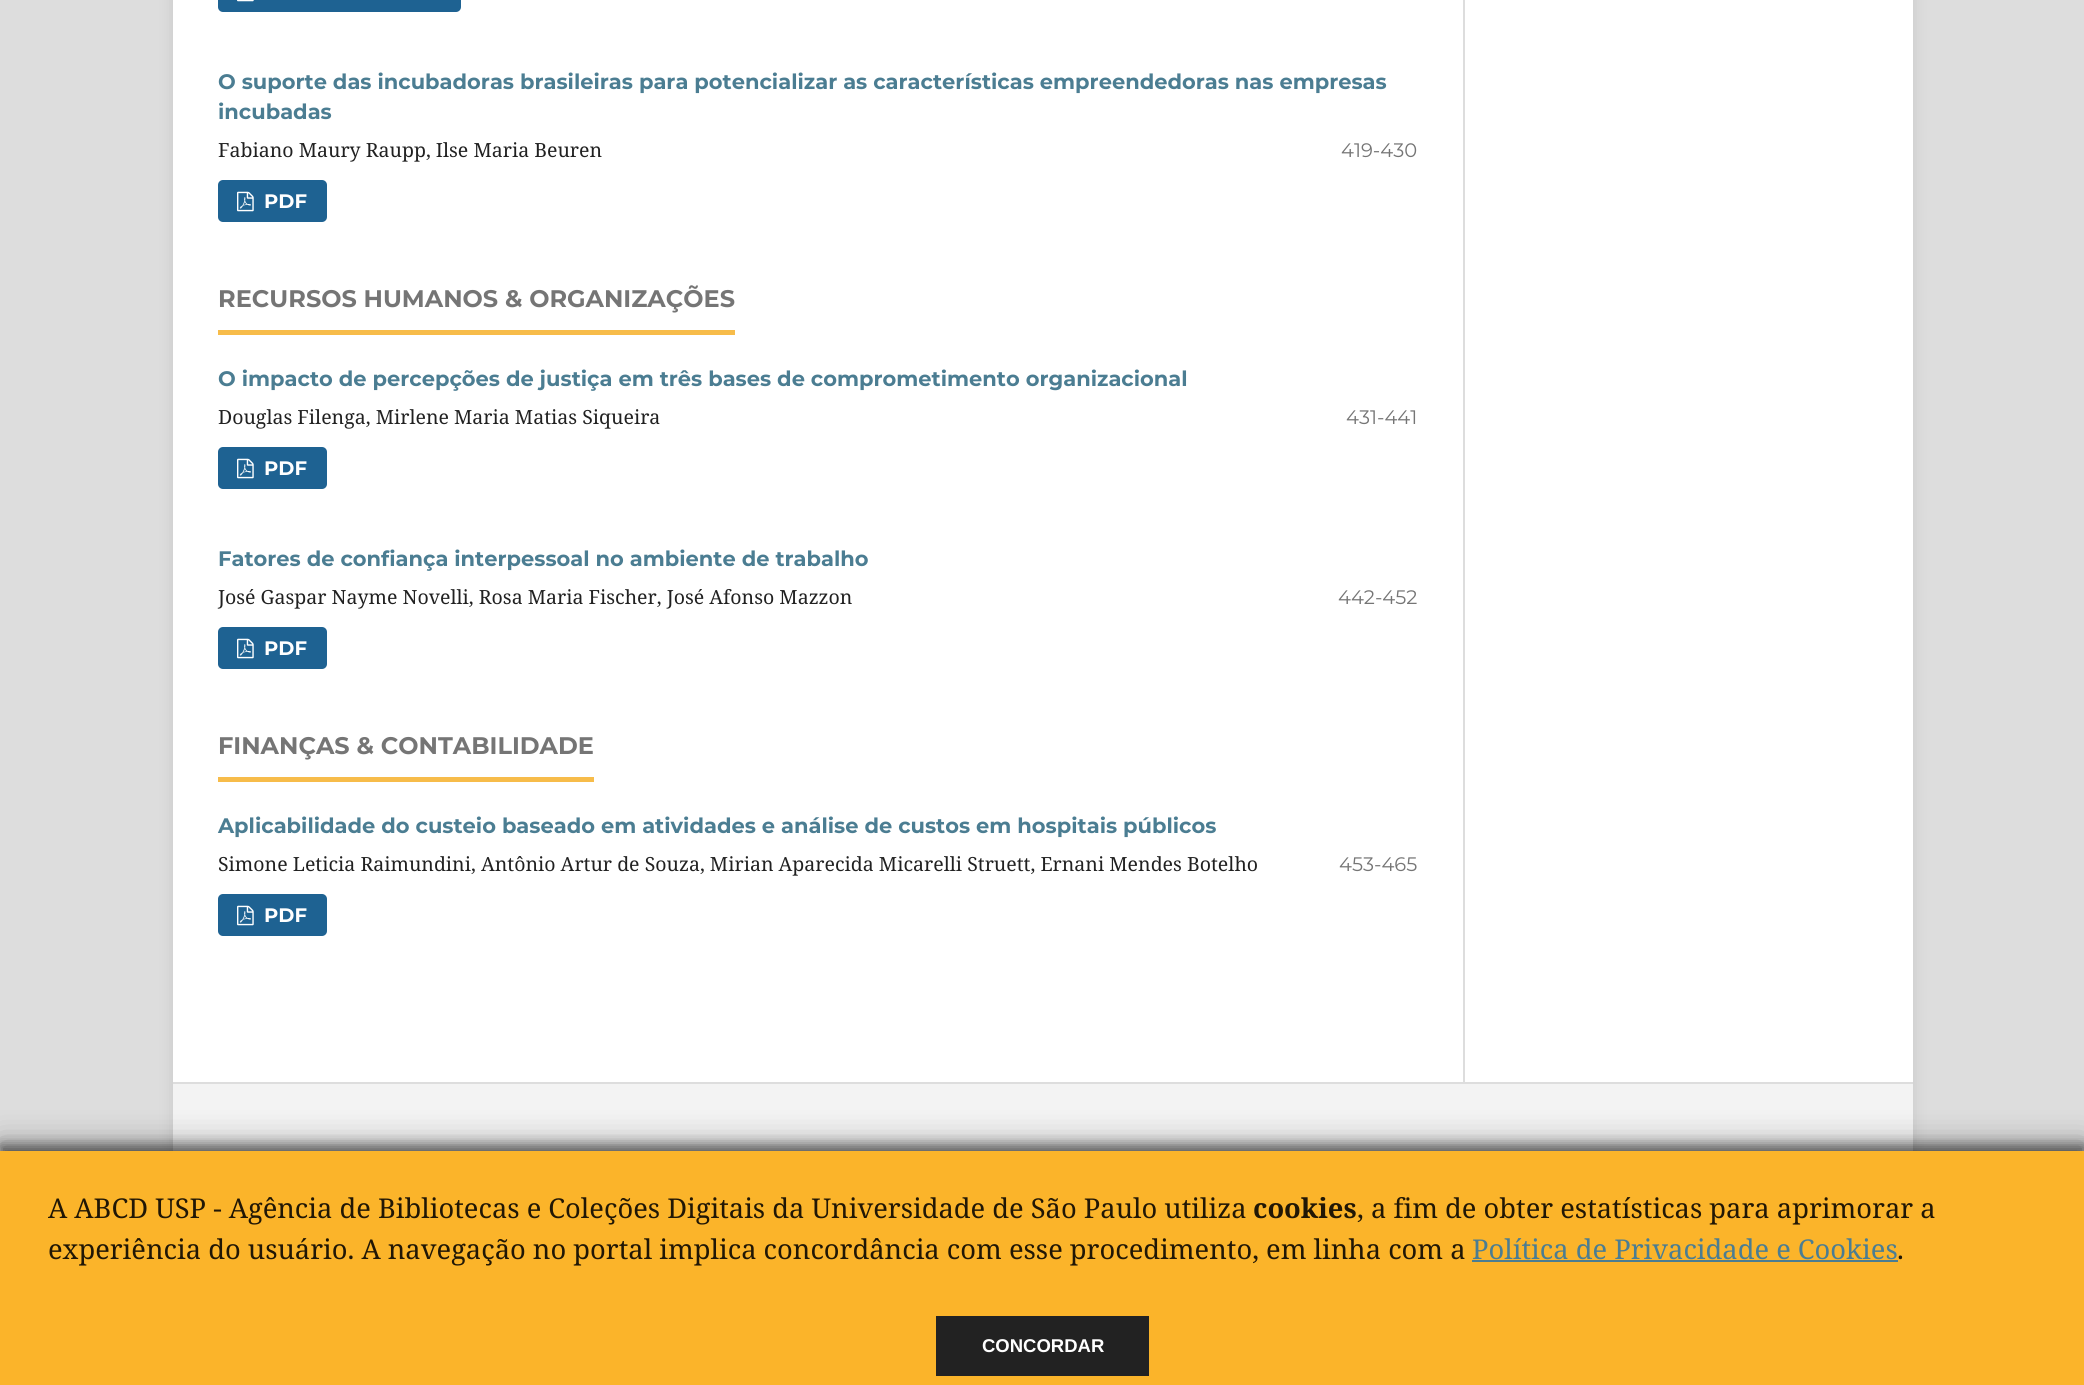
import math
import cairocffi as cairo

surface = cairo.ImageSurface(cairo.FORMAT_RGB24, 2084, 1385)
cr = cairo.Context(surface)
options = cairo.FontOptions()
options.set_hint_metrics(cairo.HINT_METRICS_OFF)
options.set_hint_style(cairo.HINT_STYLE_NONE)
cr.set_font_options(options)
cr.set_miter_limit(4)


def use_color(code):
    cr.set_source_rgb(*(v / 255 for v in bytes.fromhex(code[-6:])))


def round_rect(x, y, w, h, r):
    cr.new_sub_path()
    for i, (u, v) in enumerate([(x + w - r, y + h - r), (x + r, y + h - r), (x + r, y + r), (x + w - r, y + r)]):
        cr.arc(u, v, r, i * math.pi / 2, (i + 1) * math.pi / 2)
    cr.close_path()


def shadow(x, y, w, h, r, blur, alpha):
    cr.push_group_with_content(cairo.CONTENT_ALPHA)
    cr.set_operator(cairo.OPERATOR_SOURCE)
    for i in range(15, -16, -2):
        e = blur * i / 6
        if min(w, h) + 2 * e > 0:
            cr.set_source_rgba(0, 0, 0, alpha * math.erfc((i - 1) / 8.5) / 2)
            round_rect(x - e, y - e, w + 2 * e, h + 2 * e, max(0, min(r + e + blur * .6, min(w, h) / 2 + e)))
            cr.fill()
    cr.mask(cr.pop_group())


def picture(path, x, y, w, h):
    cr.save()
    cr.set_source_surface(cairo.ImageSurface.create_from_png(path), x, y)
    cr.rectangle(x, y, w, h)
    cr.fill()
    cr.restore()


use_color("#dddddd")
cr.paint()
use_color("#000000")
shadow(173, -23, 1740, 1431, 0, 7.5, 0.1)
use_color("#ffffff")
cr.rectangle(173, 0, 1740, 1082)
cr.fill()
use_color("#1e6292")
round_rect(218, -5, 243, 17, 5)
cr.fill()
picture("img1.png", 237, 0, 17, 2)
cr.select_font_face("Montserrat", cairo.FONT_SLANT_NORMAL, cairo.FONT_WEIGHT_BOLD)
cr.set_font_size(21)
use_color("#4b7d92")
cr.move_to(218, 89)
cr.show_text("O suporte das incubadoras brasileiras para potencializar as características empreendedoras nas empresas")
cr.move_to(218, 119)
cr.show_text("incubadas")
cr.select_font_face("Noto Serif")
cr.set_font_size(19.53)
use_color("#212121")
cr.move_to(218, 157)
cr.show_text("Fabiano Maury Raupp, Ilse Maria Beuren")
cr.select_font_face("Montserrat")
use_color("#757575")
cr.move_to(1341, 157)
cr.show_text("419-430")
use_color("#1e6292")
round_rect(218, 180, 109, 42, 5)
cr.fill()
picture("img2.png", 237, 191, 17, 21)
cr.select_font_face("Montserrat", cairo.FONT_SLANT_NORMAL, cairo.FONT_WEIGHT_BOLD)
use_color("#ffffff")
cr.move_to(264, 208)
cr.show_text("PDF")
use_color("#f7bc4a")
cr.rectangle(218, 330, 517, 5)
cr.fill()
cr.set_font_size(24)
use_color("#757575")
cr.move_to(218, 307)
cr.show_text("RECURSOS HUMANOS & ORGANIZAÇÕES")
cr.set_font_size(21)
use_color("#4b7d92")
cr.move_to(218, 386)
cr.show_text("O impacto de percepções de justiça em três bases de comprometimento organizacional")
cr.select_font_face("Noto Serif")
cr.set_font_size(19.53)
use_color("#212121")
cr.move_to(218, 424)
cr.show_text("Douglas Filenga, Mirlene Maria Matias Siqueira")
cr.select_font_face("Montserrat")
use_color("#757575")
cr.move_to(1346, 424)
cr.show_text("431-441")
use_color("#1e6292")
round_rect(218, 447, 109, 42, 5)
cr.fill()
picture("img2.png", 237, 458, 17, 21)
cr.select_font_face("Montserrat", cairo.FONT_SLANT_NORMAL, cairo.FONT_WEIGHT_BOLD)
use_color("#ffffff")
cr.move_to(264, 475)
cr.show_text("PDF")
cr.set_font_size(21)
use_color("#4b7d92")
cr.move_to(218, 566)
cr.show_text("Fatores de confiança interpessoal no ambiente de trabalho")
cr.select_font_face("Noto Serif")
cr.set_font_size(19.53)
use_color("#212121")
cr.move_to(218, 604)
cr.show_text("José Gaspar Nayme Novelli, Rosa Maria Fischer, José Afonso Mazzon")
cr.select_font_face("Montserrat")
use_color("#757575")
cr.move_to(1338, 604)
cr.show_text("442-452")
use_color("#1e6292")
round_rect(218, 627, 109, 42, 5)
cr.fill()
picture("img2.png", 237, 638, 17, 21)
cr.select_font_face("Montserrat", cairo.FONT_SLANT_NORMAL, cairo.FONT_WEIGHT_BOLD)
use_color("#ffffff")
cr.move_to(264, 655)
cr.show_text("PDF")
use_color("#f7bc4a")
cr.rectangle(218, 777, 376, 5)
cr.fill()
cr.set_font_size(24)
use_color("#757575")
cr.move_to(218, 754)
cr.show_text("FINANÇAS & CONTABILIDADE")
cr.set_font_size(21)
use_color("#4b7d92")
cr.move_to(218, 833)
cr.show_text("Aplicabilidade do custeio baseado em atividades e análise de custos em hospitais públicos")
cr.select_font_face("Noto Serif")
cr.set_font_size(19.53)
use_color("#212121")
cr.move_to(218, 871)
cr.show_text("Simone Leticia Raimundini, Antônio Artur de Souza, Mirian Aparecida Micarelli Struett, Ernani Mendes Botelho")
cr.select_font_face("Montserrat")
use_color("#757575")
cr.move_to(1339, 871)
cr.show_text("453-465")
use_color("#1e6292")
round_rect(218, 894, 109, 42, 5)
cr.fill()
picture("img2.png", 237, 905, 17, 21)
cr.select_font_face("Montserrat", cairo.FONT_SLANT_NORMAL, cairo.FONT_WEIGHT_BOLD)
use_color("#ffffff")
cr.move_to(264, 922)
cr.show_text("PDF")
use_color("#dddddd")
cr.rectangle(1463, 0, 2, 1082)
cr.fill()
use_color("#f3f3f3")
cr.rectangle(173, 1084, 1740, 67)
cr.fill()
use_color("#dddddd")
cr.rectangle(173, 1082, 1740, 2)
cr.fill()
use_color("#000000")
shadow(0, 1142, 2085, 235, 0, 15, 0.3)
shadow(0, 1145, 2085, 235, 0, 6, 0.5)
use_color("#fbb42a")
cr.rectangle(0, 1151, 2084, 234)
cr.fill()
cr.select_font_face("Noto Serif")
cr.set_font_size(27.3)
use_color("#211705")
cr.move_to(48, 1218)
cr.show_text("A ABCD USP - Agência de Bibliotecas e Coleções Digitais da Universidade de São Paulo utiliza")
cr.select_font_face("Noto Serif", cairo.FONT_SLANT_NORMAL, cairo.FONT_WEIGHT_BOLD)
cr.move_to(1253, 1218)
cr.show_text("cookies")
cr.select_font_face("Noto Serif")
cr.move_to(1357, 1218)
cr.show_text(", a fim de obter estatísticas para aprimorar a")
cr.move_to(48, 1259)
cr.show_text("experiência do usuário. A navegação no portal implica concordância com esse procedimento, em linha com a")
use_color("#4b7d92")
cr.move_to(1472, 1259)
cr.show_text("Política de Privacidade e Cookies")
cr.rectangle(1472, 1260, 426, 2)
cr.fill()
use_color("#211705")
cr.move_to(1897, 1259)
cr.show_text(".")
use_color("#222222")
cr.rectangle(936, 1316, 213, 60)
cr.fill()
cr.select_font_face("Liberation Sans", cairo.FONT_SLANT_NORMAL, cairo.FONT_WEIGHT_BOLD)
cr.set_font_size(18.5)
use_color("#ffffff")
cr.move_to(982, 1352)
cr.show_text("CONCORDAR")
surface.write_to_png("result.png")
